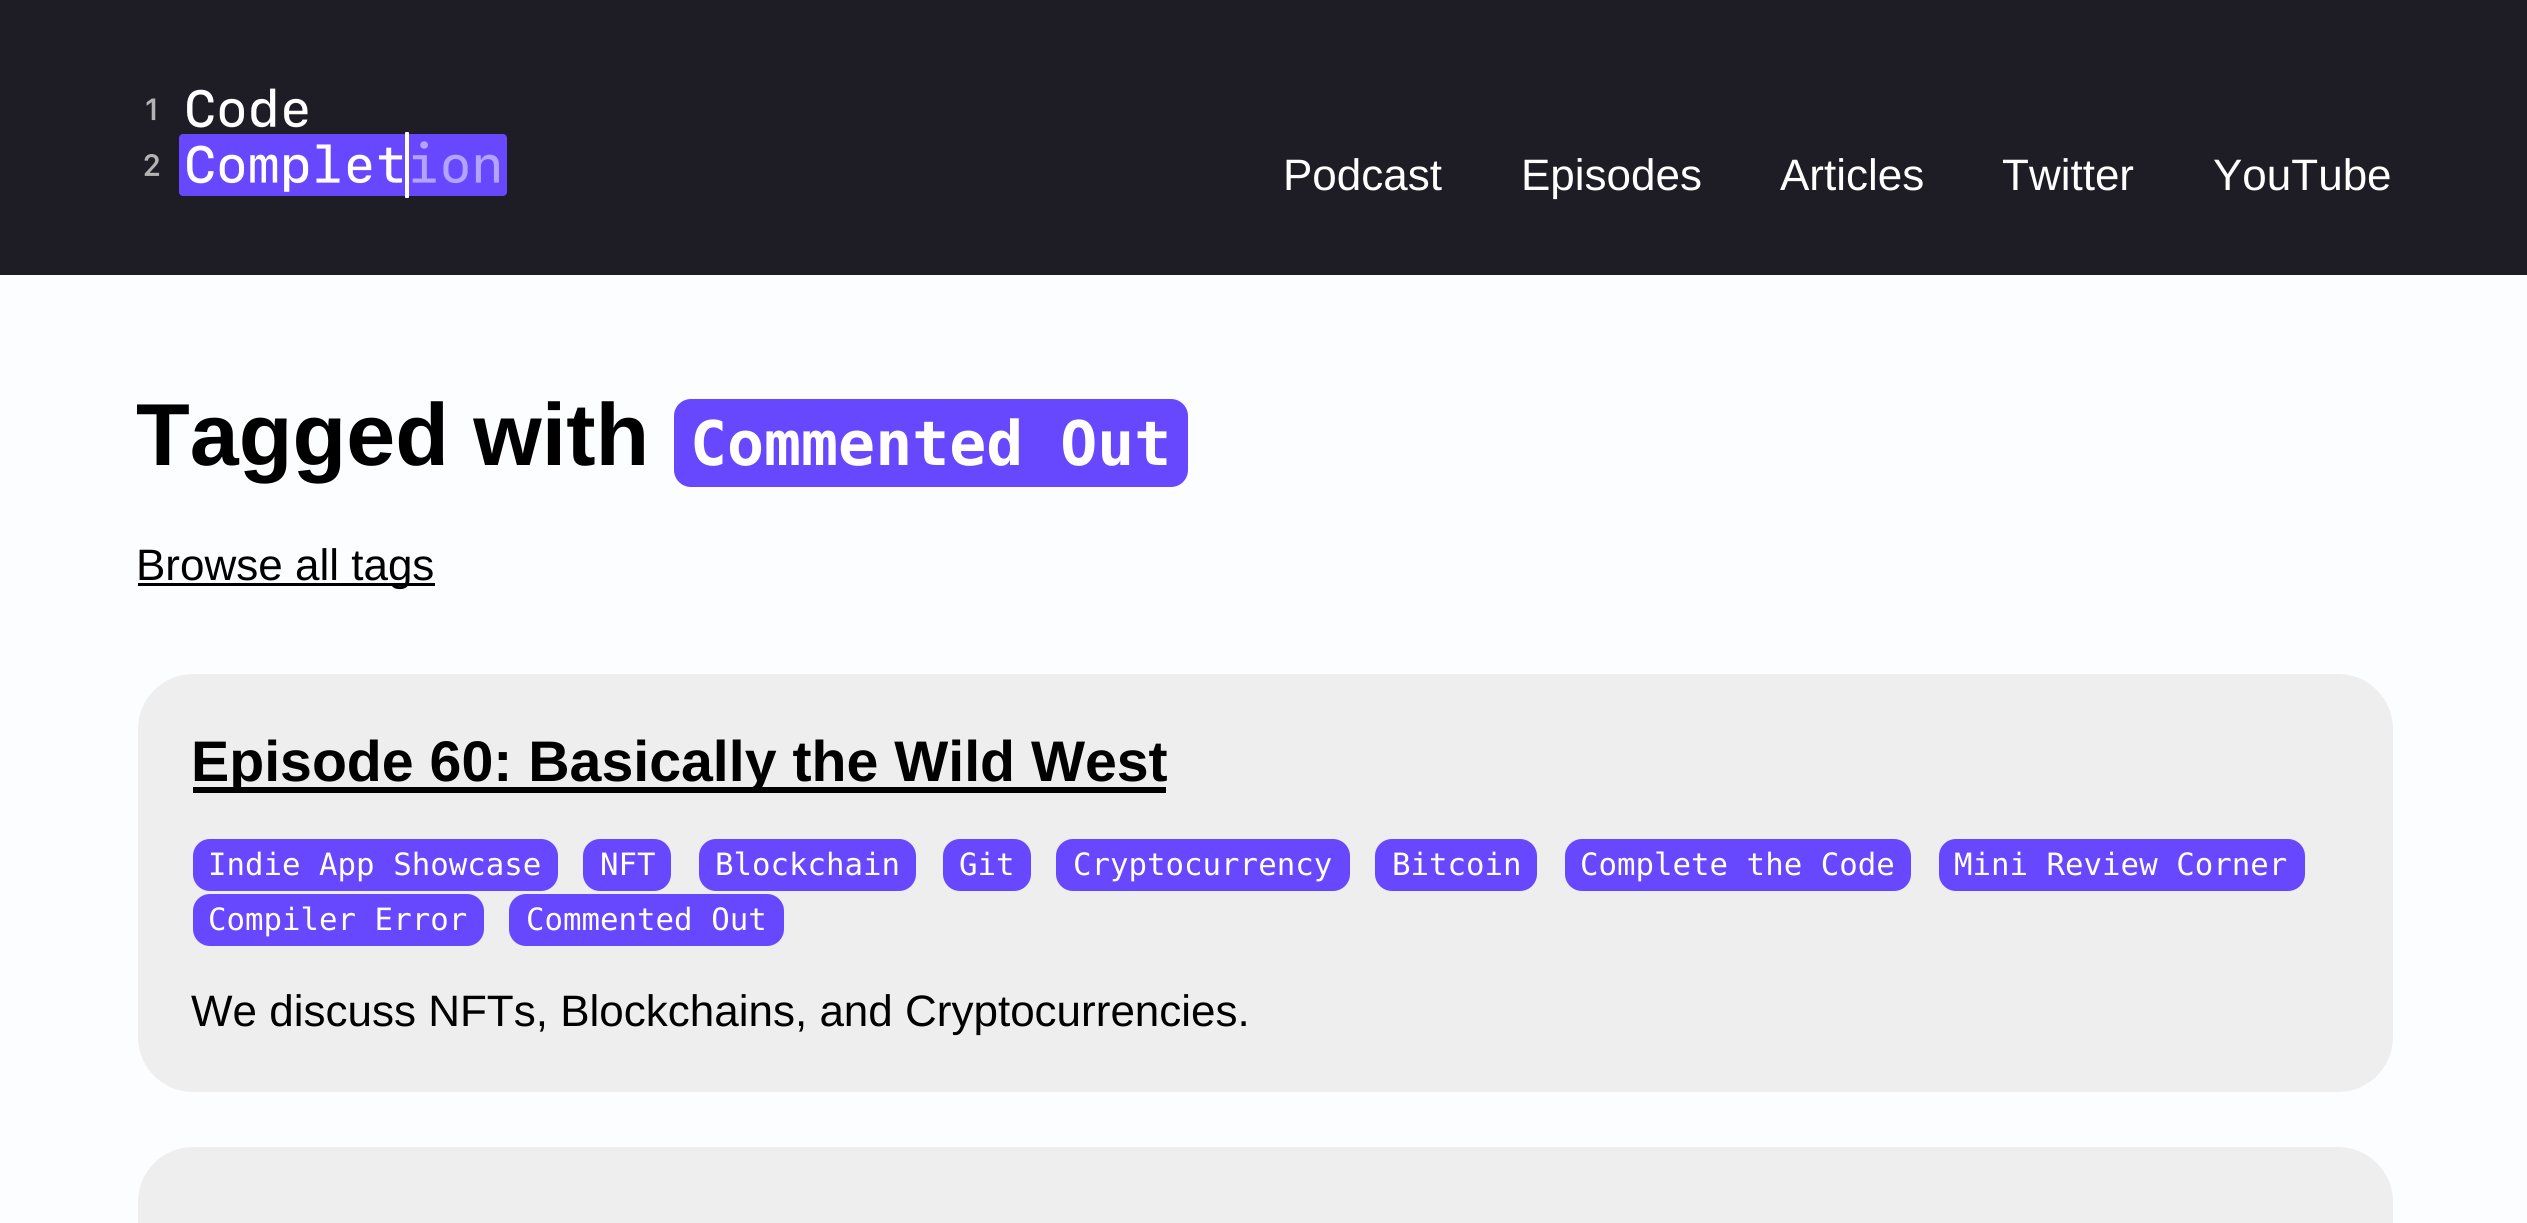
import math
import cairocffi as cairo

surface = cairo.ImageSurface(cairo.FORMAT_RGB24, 2527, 1223)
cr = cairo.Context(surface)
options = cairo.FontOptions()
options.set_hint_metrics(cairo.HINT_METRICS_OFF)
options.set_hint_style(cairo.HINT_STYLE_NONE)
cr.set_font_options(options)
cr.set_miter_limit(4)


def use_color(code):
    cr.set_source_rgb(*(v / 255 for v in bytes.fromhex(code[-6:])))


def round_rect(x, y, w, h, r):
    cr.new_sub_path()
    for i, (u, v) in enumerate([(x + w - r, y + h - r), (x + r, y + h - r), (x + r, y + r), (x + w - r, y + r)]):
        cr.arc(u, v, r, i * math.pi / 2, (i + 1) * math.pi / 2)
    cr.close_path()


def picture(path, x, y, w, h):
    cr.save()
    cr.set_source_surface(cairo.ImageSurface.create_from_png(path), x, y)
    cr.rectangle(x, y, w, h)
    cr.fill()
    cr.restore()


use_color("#fcfdff")
cr.paint()
use_color("#1e1d26")
cr.rectangle(0, 0, 2527, 275)
cr.fill()
picture("img1.png", 144, 88, 363, 110)
cr.select_font_face("Liberation Sans")
cr.set_font_size(44)
use_color("#ffffff")
cr.move_to(1283, 190)
cr.show_text("Podcast")
cr.move_to(1521, 190)
cr.show_text("Episodes")
cr.move_to(1780, 190)
cr.show_text("Articles")
cr.move_to(2002, 190)
cr.show_text("Twitter")
cr.move_to(2213, 190)
cr.show_text("YouTube")
cr.select_font_face("Liberation Sans", cairo.FONT_SLANT_NORMAL, cairo.FONT_WEIGHT_BOLD)
cr.set_font_size(88)
use_color("#000000")
cr.move_to(136, 465)
cr.show_text("Tagged with")
use_color("#6848ff")
round_rect(674, 399, 514, 88, 17)
cr.fill()
cr.select_font_face("DejaVu Sans Mono", cairo.FONT_SLANT_NORMAL, cairo.FONT_WEIGHT_BOLD)
cr.set_font_size(61.5)
use_color("#ffffff")
cr.move_to(690, 465)
cr.show_text("Commented Out")
use_color("#000000")
cr.rectangle(138, 583, 297, 3)
cr.fill()
cr.select_font_face("Liberation Sans")
cr.set_font_size(44)
cr.move_to(136, 580)
cr.show_text("Browse all tags")
use_color("#eeeeee")
round_rect(138, 674, 2255, 418, 55)
cr.fill()
use_color("#000000")
cr.rectangle(193, 787, 973, 6)
cr.fill()
cr.select_font_face("Liberation Sans", cairo.FONT_SLANT_NORMAL, cairo.FONT_WEIGHT_BOLD)
cr.set_font_size(57.25)
cr.move_to(191, 781)
cr.show_text("Episode 60: Basically the Wild West")
use_color("#6848ff")
round_rect(193, 839, 365, 52, 17)
cr.fill()
cr.select_font_face("DejaVu Sans Mono")
cr.set_font_size(30.75)
use_color("#ffffff")
cr.move_to(208, 875)
cr.show_text("Indie App Showcase")
use_color("#6848ff")
round_rect(583, 839, 88, 52, 17)
cr.fill()
use_color("#ffffff")
cr.move_to(600, 875)
cr.show_text("NFT")
use_color("#6848ff")
round_rect(699, 839, 217, 52, 17)
cr.fill()
use_color("#ffffff")
cr.move_to(715, 875)
cr.show_text("Blockchain")
use_color("#6848ff")
round_rect(943, 839, 88, 52, 17)
cr.fill()
use_color("#ffffff")
cr.move_to(959, 875)
cr.show_text("Git")
use_color("#6848ff")
round_rect(1056, 839, 294, 52, 17)
cr.fill()
use_color("#ffffff")
cr.move_to(1073, 875)
cr.show_text("Cryptocurrency")
use_color("#6848ff")
round_rect(1375, 839, 162, 52, 17)
cr.fill()
use_color("#ffffff")
cr.move_to(1392, 875)
cr.show_text("Bitcoin")
use_color("#6848ff")
round_rect(1565, 839, 346, 52, 17)
cr.fill()
use_color("#ffffff")
cr.move_to(1580, 875)
cr.show_text("Complete the Code")
use_color("#6848ff")
round_rect(1939, 839, 366, 52, 17)
cr.fill()
use_color("#ffffff")
cr.move_to(1954, 875)
cr.show_text("Mini Review Corner")
use_color("#6848ff")
round_rect(193, 894, 291, 52, 17)
cr.fill()
use_color("#ffffff")
cr.move_to(208, 930)
cr.show_text("Compiler Error")
use_color("#6848ff")
round_rect(509, 894, 275, 52, 17)
cr.fill()
use_color("#ffffff")
cr.move_to(526, 930)
cr.show_text("Commented Out")
cr.select_font_face("Liberation Sans")
cr.set_font_size(44)
use_color("#000000")
cr.move_to(191, 1026)
cr.show_text("We discuss NFTs, Blockchains, and Cryptocurrencies.")
use_color("#eeeeee")
round_rect(138, 1147, 2255, 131, 55)
cr.fill()
surface.write_to_png("result.png")
